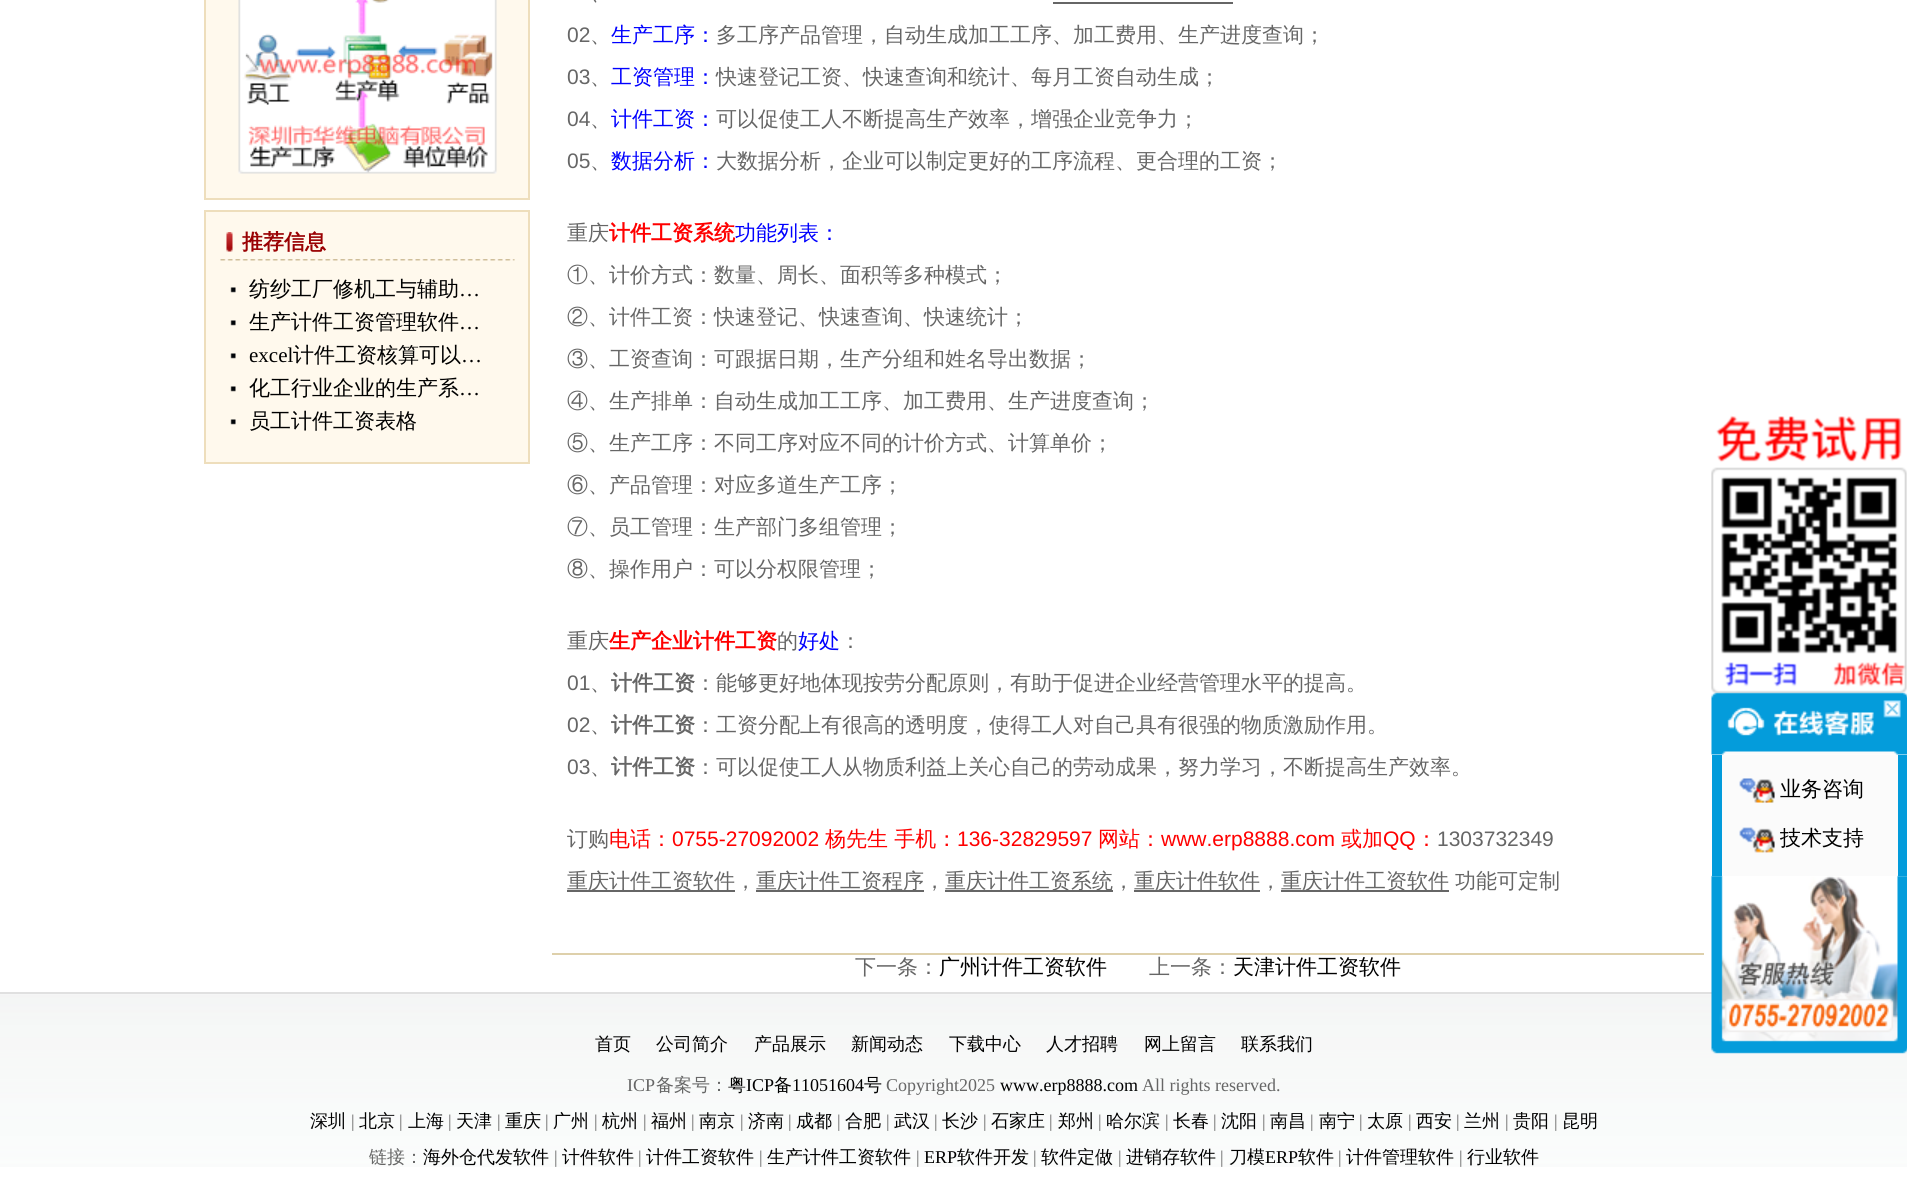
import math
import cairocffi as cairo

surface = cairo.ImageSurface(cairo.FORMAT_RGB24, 1907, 1182)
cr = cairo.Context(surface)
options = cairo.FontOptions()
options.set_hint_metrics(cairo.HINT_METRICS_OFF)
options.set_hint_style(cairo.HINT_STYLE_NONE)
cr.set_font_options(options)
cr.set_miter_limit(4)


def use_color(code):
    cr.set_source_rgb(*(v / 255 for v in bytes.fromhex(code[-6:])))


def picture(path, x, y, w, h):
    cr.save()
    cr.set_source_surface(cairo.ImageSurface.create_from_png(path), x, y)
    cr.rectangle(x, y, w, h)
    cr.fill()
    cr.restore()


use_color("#ffffff")
cr.paint()
use_color("#fff9ed")
cr.rectangle(205, -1, 324, 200)
cr.fill_preserve()
use_color("#eedebc")
cr.stroke()
picture("img1.png", 238, 0, 259, 174)
use_color("#fff9ed")
cr.rectangle(205, 211, 324, 252)
cr.fill_preserve()
use_color("#eedebc")
cr.stroke()
picture("img2.png", 220, 259, 295, 2)
picture("img3.png", 226, 232, 7, 20)
cr.select_font_face("WenQuanYi Zen Hei", cairo.FONT_SLANT_NORMAL, cairo.FONT_WEIGHT_BOLD)
cr.set_font_size(21)
use_color("#9a0103")
cr.move_to(242, 249)
cr.show_text("推荐信息")
picture("img4.png", 230, 287, 6, 6)
cr.select_font_face("WenQuanYi Zen Hei Medium")
use_color("#000000")
cr.move_to(249, 296)
cr.show_text("纺纱工厂修机工与辅助")
cr.select_font_face("Liberation Serif")
cr.move_to(459, 296)
cr.show_text("…")
picture("img4.png", 230, 320, 6, 6)
cr.select_font_face("WenQuanYi Zen Hei Medium")
cr.move_to(249, 329)
cr.show_text("生产计件工资管理软件")
cr.select_font_face("Liberation Serif")
cr.move_to(459, 329)
cr.show_text("…")
picture("img4.png", 230, 353, 6, 6)
cr.move_to(249, 362)
cr.show_text("excel")
cr.select_font_face("WenQuanYi Zen Hei Medium")
cr.move_to(293, 362)
cr.show_text("计件工资核算可以")
cr.select_font_face("Liberation Serif")
cr.move_to(461, 362)
cr.show_text("…")
picture("img4.png", 230, 386, 6, 6)
cr.select_font_face("WenQuanYi Zen Hei Medium")
cr.move_to(249, 395)
cr.show_text("化工行业企业的生产系")
cr.select_font_face("Liberation Serif")
cr.move_to(459, 395)
cr.show_text("…")
picture("img4.png", 230, 419, 6, 6)
cr.select_font_face("WenQuanYi Zen Hei Medium")
cr.move_to(249, 428)
cr.show_text("员工计件工资表格")
use_color("#666666")
cr.move_to(590, 0)
cr.show_text("、")
cr.rectangle(1053, 2, 180, 2)
cr.fill()
cr.select_font_face("Liberation Sans")
cr.move_to(567, 42)
cr.show_text("02")
cr.select_font_face("WenQuanYi Zen Hei Medium")
cr.move_to(590, 42)
cr.show_text("、")
use_color("#0000ff")
cr.move_to(611, 42)
cr.show_text("生产工序：")
use_color("#666666")
cr.move_to(716, 42)
cr.show_text("多工序产品管理，自动生成加工工序、加工费用、生产进度查询；")
cr.select_font_face("Liberation Sans")
cr.move_to(567, 84)
cr.show_text("03")
cr.select_font_face("WenQuanYi Zen Hei Medium")
cr.move_to(590, 84)
cr.show_text("、")
use_color("#0000ff")
cr.move_to(611, 84)
cr.show_text("工资管理：")
use_color("#666666")
cr.move_to(716, 84)
cr.show_text("快速登记工资、快速查询和统计、每月工资自动生成；")
cr.select_font_face("Liberation Sans")
cr.move_to(567, 126)
cr.show_text("04")
cr.select_font_face("WenQuanYi Zen Hei Medium")
cr.move_to(590, 126)
cr.show_text("、")
use_color("#0000ff")
cr.move_to(611, 126)
cr.show_text("计件工资：")
use_color("#666666")
cr.move_to(716, 126)
cr.show_text("可以促使工人不断提高生产效率，增强企业竞争力；")
cr.select_font_face("Liberation Sans")
cr.move_to(567, 168)
cr.show_text("05")
cr.select_font_face("WenQuanYi Zen Hei Medium")
cr.move_to(590, 168)
cr.show_text("、")
use_color("#0000ff")
cr.move_to(611, 168)
cr.show_text("数据分析：")
use_color("#666666")
cr.move_to(716, 168)
cr.show_text("大数据分析，企业可以制定更好的工序流程、更合理的工资；")
cr.move_to(567, 240)
cr.show_text("重庆")
cr.select_font_face("WenQuanYi Zen Hei", cairo.FONT_SLANT_NORMAL, cairo.FONT_WEIGHT_BOLD)
use_color("#ff0000")
cr.move_to(609, 240)
cr.show_text("计件工资系统")
cr.select_font_face("WenQuanYi Zen Hei Medium")
use_color("#0000ff")
cr.move_to(735, 240)
cr.show_text("功能列表：")
use_color("#666666")
cr.move_to(567, 282)
cr.show_text("①、计价方式：数量、周长、面积等多种模式；")
cr.move_to(567, 324)
cr.show_text("②、计件工资：快速登记、快速查询、快速统计；")
cr.move_to(567, 366)
cr.show_text("③、工资查询：可跟据日期，生产分组和姓名导出数据；")
cr.move_to(567, 408)
cr.show_text("④、生产排单：自动生成加工工序、加工费用、生产进度查询；")
cr.move_to(567, 450)
cr.show_text("⑤、生产工序：不同工序对应不同的计价方式、计算单价；")
cr.move_to(567, 492)
cr.show_text("⑥、产品管理：对应多道生产工序；")
cr.move_to(567, 534)
cr.show_text("⑦、员工管理：生产部门多组管理；")
cr.move_to(567, 576)
cr.show_text("⑧、操作用户：可以分权限管理；")
cr.move_to(567, 648)
cr.show_text("重庆")
cr.select_font_face("WenQuanYi Zen Hei", cairo.FONT_SLANT_NORMAL, cairo.FONT_WEIGHT_BOLD)
use_color("#ff0000")
cr.move_to(609, 648)
cr.show_text("生产企业计件工资")
cr.select_font_face("WenQuanYi Zen Hei Medium")
use_color("#666666")
cr.move_to(777, 648)
cr.show_text("的")
use_color("#0000ff")
cr.move_to(798, 648)
cr.show_text("好处")
use_color("#666666")
cr.move_to(840, 648)
cr.show_text("：")
cr.select_font_face("Liberation Sans")
cr.move_to(567, 690)
cr.show_text("01")
cr.select_font_face("WenQuanYi Zen Hei Medium")
cr.move_to(590, 690)
cr.show_text("、")
cr.select_font_face("WenQuanYi Zen Hei", cairo.FONT_SLANT_NORMAL, cairo.FONT_WEIGHT_BOLD)
cr.move_to(611, 690)
cr.show_text("计件工资")
cr.select_font_face("WenQuanYi Zen Hei Medium")
cr.move_to(695, 690)
cr.show_text("：能够更好地体现按劳分配原则，有助于促进企业经营管理水平的提高。")
cr.select_font_face("Liberation Sans")
cr.move_to(567, 732)
cr.show_text("02")
cr.select_font_face("WenQuanYi Zen Hei Medium")
cr.move_to(590, 732)
cr.show_text("、")
cr.select_font_face("WenQuanYi Zen Hei", cairo.FONT_SLANT_NORMAL, cairo.FONT_WEIGHT_BOLD)
cr.move_to(611, 732)
cr.show_text("计件工资")
cr.select_font_face("WenQuanYi Zen Hei Medium")
cr.move_to(695, 732)
cr.show_text("：工资分配上有很高的透明度，使得工人对自己具有很强的物质激励作用。")
cr.select_font_face("Liberation Sans")
cr.move_to(567, 774)
cr.show_text("03")
cr.select_font_face("WenQuanYi Zen Hei Medium")
cr.move_to(590, 774)
cr.show_text("、")
cr.select_font_face("WenQuanYi Zen Hei", cairo.FONT_SLANT_NORMAL, cairo.FONT_WEIGHT_BOLD)
cr.move_to(611, 774)
cr.show_text("计件工资")
cr.select_font_face("WenQuanYi Zen Hei Medium")
cr.move_to(695, 774)
cr.show_text("：可以促使工人从物质利益上关心自己的劳动成果，努力学习，不断提高生产效率。")
cr.move_to(567, 846)
cr.show_text("订购")
use_color("#ff0000")
cr.move_to(609, 846)
cr.show_text("电话：")
cr.select_font_face("Liberation Sans")
cr.move_to(672, 846)
cr.show_text("0755-27092002")
cr.select_font_face("WenQuanYi Zen Hei Medium")
cr.move_to(825, 846)
cr.show_text("杨先生 手机：")
cr.select_font_face("Liberation Sans")
cr.move_to(957, 846)
cr.show_text("136-32829597")
cr.select_font_face("WenQuanYi Zen Hei Medium")
cr.move_to(1098, 846)
cr.show_text("网站：")
cr.select_font_face("Liberation Sans")
cr.move_to(1161, 846)
cr.show_text("www.erp8888.com")
cr.select_font_face("WenQuanYi Zen Hei Medium")
cr.move_to(1341, 846)
cr.show_text("或加")
cr.select_font_face("Liberation Sans")
cr.move_to(1383, 846)
cr.show_text("QQ")
cr.select_font_face("WenQuanYi Zen Hei Medium")
cr.move_to(1416, 846)
cr.show_text("：")
cr.select_font_face("Liberation Sans")
use_color("#666666")
cr.move_to(1437, 846)
cr.show_text("1303732349")
cr.rectangle(567, 890, 168, 2)
cr.fill()
cr.select_font_face("WenQuanYi Zen Hei Medium")
cr.move_to(567, 888)
cr.show_text("重庆计件工资软件，")
cr.rectangle(756, 890, 168, 2)
cr.fill()
cr.move_to(756, 888)
cr.show_text("重庆计件工资程序，")
cr.rectangle(945, 890, 168, 2)
cr.fill()
cr.move_to(945, 888)
cr.show_text("重庆计件工资系统，")
cr.rectangle(1134, 890, 126, 2)
cr.fill()
cr.move_to(1134, 888)
cr.show_text("重庆计件软件，")
cr.rectangle(1281, 890, 168, 2)
cr.fill()
cr.move_to(1281, 888)
cr.show_text("重庆计件工资软件")
cr.move_to(1455, 888)
cr.show_text("功能可定制")
use_color("#ded0ab")
cr.rectangle(552, 953, 1152, 2)
cr.fill()
use_color("#666666")
cr.move_to(855, 974)
cr.show_text("下一条：")
use_color("#000000")
cr.move_to(939, 974)
cr.show_text("广州计件工资软件")
use_color("#666666")
cr.move_to(1149, 974)
cr.show_text("上一条：")
use_color("#000000")
cr.move_to(1233, 974)
cr.show_text("天津计件工资软件")
picture("img5.png", 1711, 415, 196, 279)
picture("img6.png", 1711, 692, 196, 63)
picture("img7.png", 1883, 700, 18, 18)
use_color("#fbfbfb")
cr.rectangle(1722, 755, 176, 121)
cr.fill()
use_color("#029bdb")
cr.rectangle(1898, 755, 9, 121)
cr.fill()
cr.rectangle(1712, 755, 10, 121)
cr.fill()
picture("img8.png", 1739, 778, 36, 25)
use_color("#000000")
cr.move_to(1780, 796)
cr.show_text("业务咨询")
picture("img9.png", 1739, 827, 36, 26)
cr.move_to(1780, 845)
cr.show_text("技术支持")
picture("img11.png", 0, 994, 1907, 173)
use_color("#e0e0e0")
cr.rectangle(0, 992, 1907, 2)
cr.fill()
picture("img10.png", 1711, 875, 196, 179)
cr.set_font_size(18)
use_color("#000000")
cr.move_to(595, 1050)
cr.show_text("首页")
cr.move_to(656, 1050)
cr.show_text("公司简介")
cr.move_to(754, 1050)
cr.show_text("产品展示")
cr.move_to(851, 1050)
cr.show_text("新闻动态")
cr.move_to(949, 1050)
cr.show_text("下载中心")
cr.move_to(1046, 1050)
cr.show_text("人才招聘")
cr.move_to(1144, 1050)
cr.show_text("网上留言")
cr.move_to(1241, 1050)
cr.show_text("联系我们")
cr.select_font_face("Liberation Serif")
use_color("#666666")
cr.move_to(627, 1091)
cr.show_text("ICP")
cr.select_font_face("WenQuanYi Zen Hei Medium")
cr.move_to(656, 1091)
cr.show_text("备案号：")
use_color("#000000")
cr.move_to(728, 1091)
cr.show_text("粤")
cr.select_font_face("Liberation Serif")
cr.move_to(746, 1091)
cr.show_text("ICP")
cr.select_font_face("WenQuanYi Zen Hei Medium")
cr.move_to(774, 1091)
cr.show_text("备")
cr.select_font_face("Liberation Serif")
cr.move_to(792, 1091)
cr.show_text("11051604")
cr.select_font_face("WenQuanYi Zen Hei Medium")
cr.move_to(864, 1091)
cr.show_text("号")
cr.select_font_face("Liberation Serif")
use_color("#666666")
cr.move_to(886, 1091)
cr.show_text("Copyright2025")
use_color("#000000")
cr.move_to(1000, 1091)
cr.show_text("www.erp8888.com")
use_color("#666666")
cr.move_to(1142, 1091)
cr.show_text("All rights reserved.")
cr.select_font_face("WenQuanYi Zen Hei Medium")
use_color("#000000")
cr.move_to(310, 1127)
cr.show_text("深圳")
cr.select_font_face("Liberation Serif")
use_color("#666666")
cr.move_to(351, 1127)
cr.show_text("|")
cr.select_font_face("WenQuanYi Zen Hei Medium")
use_color("#000000")
cr.move_to(359, 1127)
cr.show_text("北京")
cr.select_font_face("Liberation Serif")
use_color("#666666")
cr.move_to(399, 1127)
cr.show_text("|")
cr.select_font_face("WenQuanYi Zen Hei Medium")
use_color("#000000")
cr.move_to(408, 1127)
cr.show_text("上海")
cr.select_font_face("Liberation Serif")
use_color("#666666")
cr.move_to(448, 1127)
cr.show_text("|")
cr.select_font_face("WenQuanYi Zen Hei Medium")
use_color("#000000")
cr.move_to(456, 1127)
cr.show_text("天津")
cr.select_font_face("Liberation Serif")
use_color("#666666")
cr.move_to(497, 1127)
cr.show_text("|")
cr.select_font_face("WenQuanYi Zen Hei Medium")
use_color("#000000")
cr.move_to(505, 1127)
cr.show_text("重庆")
cr.select_font_face("Liberation Serif")
use_color("#666666")
cr.move_to(545, 1127)
cr.show_text("|")
cr.select_font_face("WenQuanYi Zen Hei Medium")
use_color("#000000")
cr.move_to(553, 1127)
cr.show_text("广州")
cr.select_font_face("Liberation Serif")
use_color("#666666")
cr.move_to(594, 1127)
cr.show_text("|")
cr.select_font_face("WenQuanYi Zen Hei Medium")
use_color("#000000")
cr.move_to(602, 1127)
cr.show_text("杭州")
cr.select_font_face("Liberation Serif")
use_color("#666666")
cr.move_to(643, 1127)
cr.show_text("|")
cr.select_font_face("WenQuanYi Zen Hei Medium")
use_color("#000000")
cr.move_to(651, 1127)
cr.show_text("福州")
cr.select_font_face("Liberation Serif")
use_color("#666666")
cr.move_to(691, 1127)
cr.show_text("|")
cr.select_font_face("WenQuanYi Zen Hei Medium")
use_color("#000000")
cr.move_to(699, 1127)
cr.show_text("南京")
cr.select_font_face("Liberation Serif")
use_color("#666666")
cr.move_to(740, 1127)
cr.show_text("|")
cr.select_font_face("WenQuanYi Zen Hei Medium")
use_color("#000000")
cr.move_to(748, 1127)
cr.show_text("济南")
cr.select_font_face("Liberation Serif")
use_color("#666666")
cr.move_to(788, 1127)
cr.show_text("|")
cr.select_font_face("WenQuanYi Zen Hei Medium")
use_color("#000000")
cr.move_to(796, 1127)
cr.show_text("成都")
cr.select_font_face("Liberation Serif")
use_color("#666666")
cr.move_to(837, 1127)
cr.show_text("|")
cr.select_font_face("WenQuanYi Zen Hei Medium")
use_color("#000000")
cr.move_to(845, 1127)
cr.show_text("合肥")
cr.select_font_face("Liberation Serif")
use_color("#666666")
cr.move_to(886, 1127)
cr.show_text("|")
cr.select_font_face("WenQuanYi Zen Hei Medium")
use_color("#000000")
cr.move_to(894, 1127)
cr.show_text("武汉")
cr.select_font_face("Liberation Serif")
use_color("#666666")
cr.move_to(934, 1127)
cr.show_text("|")
cr.select_font_face("WenQuanYi Zen Hei Medium")
use_color("#000000")
cr.move_to(942, 1127)
cr.show_text("长沙")
cr.select_font_face("Liberation Serif")
use_color("#666666")
cr.move_to(983, 1127)
cr.show_text("|")
cr.select_font_face("WenQuanYi Zen Hei Medium")
use_color("#000000")
cr.move_to(991, 1127)
cr.show_text("石家庄")
cr.select_font_face("Liberation Serif")
use_color("#666666")
cr.move_to(1049, 1127)
cr.show_text("|")
cr.select_font_face("WenQuanYi Zen Hei Medium")
use_color("#000000")
cr.move_to(1058, 1127)
cr.show_text("郑州")
cr.select_font_face("Liberation Serif")
use_color("#666666")
cr.move_to(1098, 1127)
cr.show_text("|")
cr.select_font_face("WenQuanYi Zen Hei Medium")
use_color("#000000")
cr.move_to(1106, 1127)
cr.show_text("哈尔滨")
cr.select_font_face("Liberation Serif")
use_color("#666666")
cr.move_to(1165, 1127)
cr.show_text("|")
cr.select_font_face("WenQuanYi Zen Hei Medium")
use_color("#000000")
cr.move_to(1173, 1127)
cr.show_text("长春")
cr.select_font_face("Liberation Serif")
use_color("#666666")
cr.move_to(1213, 1127)
cr.show_text("|")
cr.select_font_face("WenQuanYi Zen Hei Medium")
use_color("#000000")
cr.move_to(1221, 1127)
cr.show_text("沈阳")
cr.select_font_face("Liberation Serif")
use_color("#666666")
cr.move_to(1262, 1127)
cr.show_text("|")
cr.select_font_face("WenQuanYi Zen Hei Medium")
use_color("#000000")
cr.move_to(1270, 1127)
cr.show_text("南昌")
cr.select_font_face("Liberation Serif")
use_color("#666666")
cr.move_to(1310, 1127)
cr.show_text("|")
cr.select_font_face("WenQuanYi Zen Hei Medium")
use_color("#000000")
cr.move_to(1319, 1127)
cr.show_text("南宁")
cr.select_font_face("Liberation Serif")
use_color("#666666")
cr.move_to(1359, 1127)
cr.show_text("|")
cr.select_font_face("WenQuanYi Zen Hei Medium")
use_color("#000000")
cr.move_to(1367, 1127)
cr.show_text("太原")
cr.select_font_face("Liberation Serif")
use_color("#666666")
cr.move_to(1408, 1127)
cr.show_text("|")
cr.select_font_face("WenQuanYi Zen Hei Medium")
use_color("#000000")
cr.move_to(1416, 1127)
cr.show_text("西安")
cr.select_font_face("Liberation Serif")
use_color("#666666")
cr.move_to(1456, 1127)
cr.show_text("|")
cr.select_font_face("WenQuanYi Zen Hei Medium")
use_color("#000000")
cr.move_to(1464, 1127)
cr.show_text("兰州")
cr.select_font_face("Liberation Serif")
use_color("#666666")
cr.move_to(1505, 1127)
cr.show_text("|")
cr.select_font_face("WenQuanYi Zen Hei Medium")
use_color("#000000")
cr.move_to(1513, 1127)
cr.show_text("贵阳")
cr.select_font_face("Liberation Serif")
use_color("#666666")
cr.move_to(1554, 1127)
cr.show_text("|")
cr.select_font_face("WenQuanYi Zen Hei Medium")
use_color("#000000")
cr.move_to(1562, 1127)
cr.show_text("昆明")
use_color("#666666")
cr.move_to(369, 1163)
cr.show_text("链接：")
use_color("#000000")
cr.move_to(423, 1163)
cr.show_text("海外仓代发软件")
cr.select_font_face("Liberation Serif")
use_color("#666666")
cr.move_to(554, 1163)
cr.show_text("|")
cr.select_font_face("WenQuanYi Zen Hei Medium")
use_color("#000000")
cr.move_to(562, 1163)
cr.show_text("计件软件")
cr.select_font_face("Liberation Serif")
use_color("#666666")
cr.move_to(638, 1163)
cr.show_text("|")
cr.select_font_face("WenQuanYi Zen Hei Medium")
use_color("#000000")
cr.move_to(646, 1163)
cr.show_text("计件工资软件")
cr.select_font_face("Liberation Serif")
use_color("#666666")
cr.move_to(759, 1163)
cr.show_text("|")
cr.select_font_face("WenQuanYi Zen Hei Medium")
use_color("#000000")
cr.move_to(767, 1163)
cr.show_text("生产计件工资软件")
cr.select_font_face("Liberation Serif")
use_color("#666666")
cr.move_to(916, 1163)
cr.show_text("|")
use_color("#000000")
cr.move_to(924, 1163)
cr.show_text("ERP")
cr.select_font_face("WenQuanYi Zen Hei Medium")
cr.move_to(957, 1163)
cr.show_text("软件开发")
cr.select_font_face("Liberation Serif")
use_color("#666666")
cr.move_to(1033, 1163)
cr.show_text("|")
cr.select_font_face("WenQuanYi Zen Hei Medium")
use_color("#000000")
cr.move_to(1041, 1163)
cr.show_text("软件定做")
cr.select_font_face("Liberation Serif")
use_color("#666666")
cr.move_to(1118, 1163)
cr.show_text("|")
cr.select_font_face("WenQuanYi Zen Hei Medium")
use_color("#000000")
cr.move_to(1126, 1163)
cr.show_text("进销存软件")
cr.select_font_face("Liberation Serif")
use_color("#666666")
cr.move_to(1220, 1163)
cr.show_text("|")
cr.select_font_face("WenQuanYi Zen Hei Medium")
use_color("#000000")
cr.move_to(1229, 1163)
cr.show_text("刀模")
cr.select_font_face("Liberation Serif")
cr.move_to(1265, 1163)
cr.show_text("ERP")
cr.select_font_face("WenQuanYi Zen Hei Medium")
cr.move_to(1298, 1163)
cr.show_text("软件")
cr.select_font_face("Liberation Serif")
use_color("#666666")
cr.move_to(1338, 1163)
cr.show_text("|")
cr.select_font_face("WenQuanYi Zen Hei Medium")
use_color("#000000")
cr.move_to(1346, 1163)
cr.show_text("计件管理软件")
cr.select_font_face("Liberation Serif")
use_color("#666666")
cr.move_to(1459, 1163)
cr.show_text("|")
cr.select_font_face("WenQuanYi Zen Hei Medium")
use_color("#000000")
cr.move_to(1467, 1163)
cr.show_text("行业软件")
surface.write_to_png("result.png")
